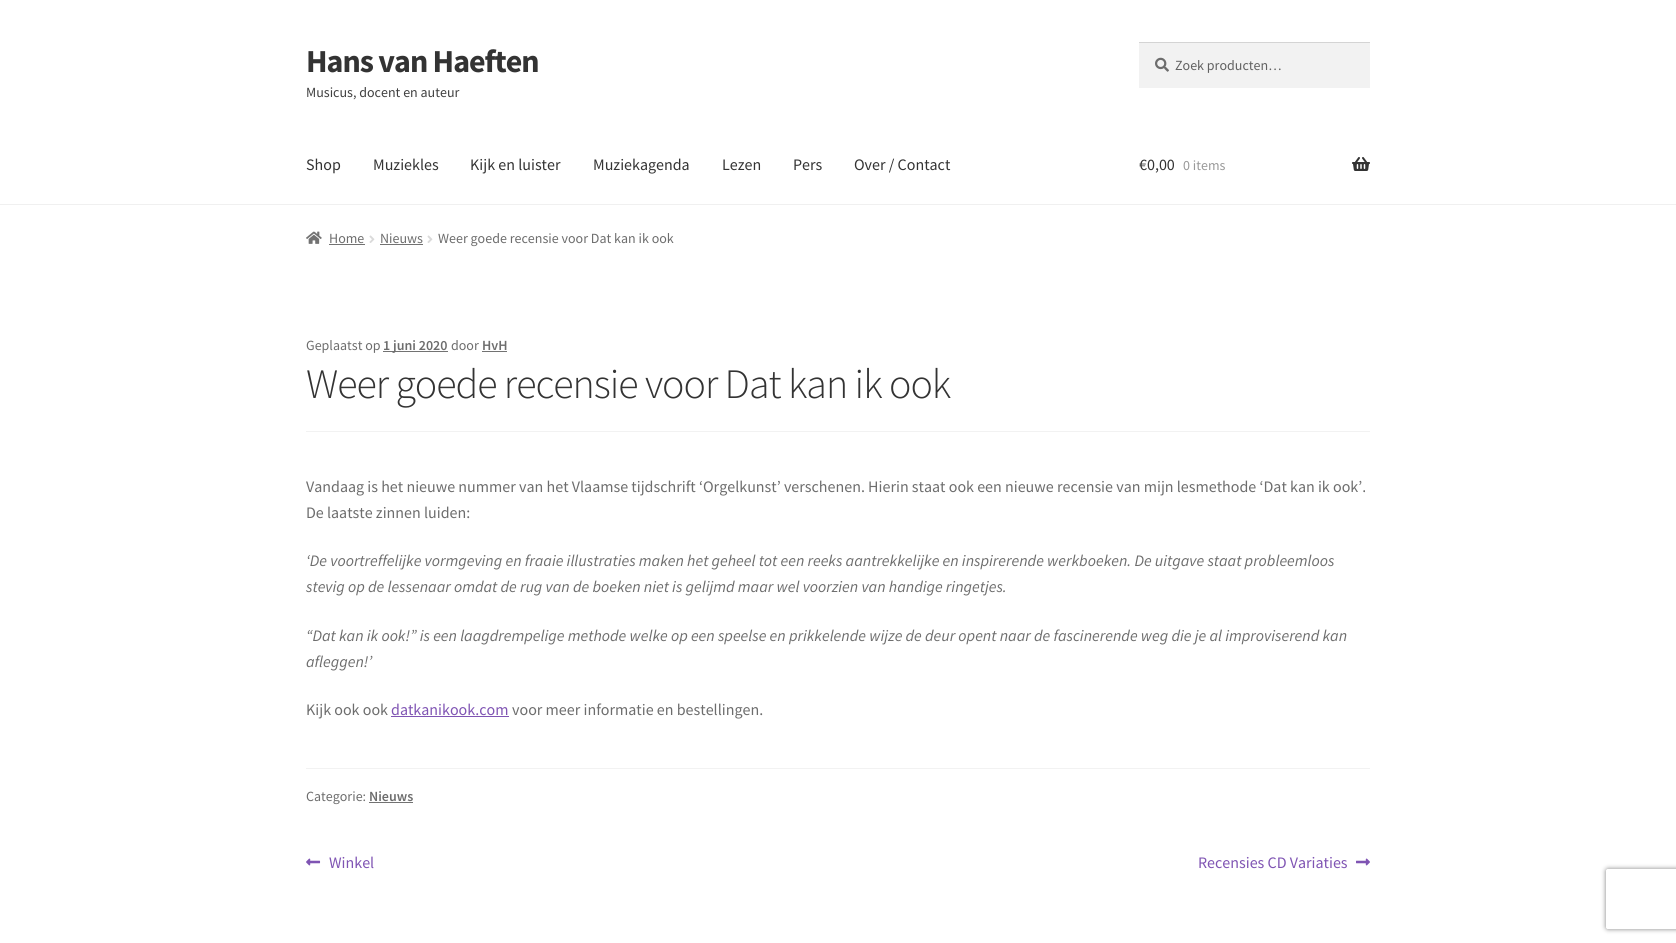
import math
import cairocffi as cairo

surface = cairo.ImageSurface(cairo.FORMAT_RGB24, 1676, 943)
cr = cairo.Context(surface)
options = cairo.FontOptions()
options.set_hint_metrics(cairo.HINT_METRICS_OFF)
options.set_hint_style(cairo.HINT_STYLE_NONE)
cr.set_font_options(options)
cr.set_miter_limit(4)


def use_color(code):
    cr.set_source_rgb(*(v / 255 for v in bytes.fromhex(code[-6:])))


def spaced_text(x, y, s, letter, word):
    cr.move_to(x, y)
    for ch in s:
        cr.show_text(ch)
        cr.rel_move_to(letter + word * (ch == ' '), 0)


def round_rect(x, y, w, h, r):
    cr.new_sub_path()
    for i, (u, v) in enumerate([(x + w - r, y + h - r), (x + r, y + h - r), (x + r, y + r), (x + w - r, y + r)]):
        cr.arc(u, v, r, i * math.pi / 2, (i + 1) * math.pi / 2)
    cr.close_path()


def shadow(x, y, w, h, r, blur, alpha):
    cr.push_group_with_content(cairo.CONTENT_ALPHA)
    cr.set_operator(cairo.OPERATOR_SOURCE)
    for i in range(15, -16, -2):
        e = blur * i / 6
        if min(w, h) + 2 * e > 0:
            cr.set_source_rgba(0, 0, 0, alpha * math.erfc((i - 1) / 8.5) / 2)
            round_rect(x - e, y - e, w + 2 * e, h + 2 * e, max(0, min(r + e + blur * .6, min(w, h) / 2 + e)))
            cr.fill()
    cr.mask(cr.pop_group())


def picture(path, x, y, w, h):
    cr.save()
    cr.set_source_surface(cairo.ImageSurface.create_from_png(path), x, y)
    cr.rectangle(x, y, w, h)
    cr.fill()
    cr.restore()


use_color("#ffffff")
cr.paint()
use_color("#f0f0f0")
cr.rectangle(0, 204, 1676, 1)
cr.fill()
cr.select_font_face("Source Sans Pro", cairo.FONT_SLANT_NORMAL, cairo.FONT_WEIGHT_BOLD)
cr.set_font_size(32)
use_color("#333333")
spaced_text(306, 72, "Hans van Haeften", -1, 0)
cr.select_font_face("Source Sans Pro")
cr.set_font_size(14)
use_color("#404040")
cr.move_to(306, 97)
cr.show_text("Musicus, docent en auteur")
use_color("#f2f2f2")
cr.rectangle(1139, 43, 231, 45)
cr.fill()
picture("img1.png", 1155, 57, 14, 15)
use_color("#d4d4d4")
cr.rectangle(1139, 42, 231, 1)
cr.fill()
use_color("#616161")
cr.move_to(1175, 70)
cr.show_text("Zoek producten…")
cr.set_font_size(16)
use_color("#333333")
cr.move_to(306, 170)
cr.show_text("Shop")
cr.move_to(373, 170)
cr.show_text("Muziekles")
cr.move_to(470, 170)
cr.show_text("Kijk en luister")
cr.move_to(593, 170)
cr.show_text("Muziekagenda")
cr.move_to(722, 170)
cr.show_text("Lezen")
cr.move_to(793, 170)
cr.show_text("Pers")
cr.move_to(854, 170)
cr.show_text("Over / Contact")
cr.move_to(1139, 170)
cr.show_text("€0,00")
cr.set_font_size(14)
use_color("#999999")
cr.move_to(1183, 170)
cr.show_text("0 items")
picture("img2.png", 1352, 157, 18, 14)
picture("img3.png", 306, 231, 16, 13)
use_color("#6d6d6d")
cr.move_to(329, 243)
cr.show_text("Home")
use_color("#727272")
cr.rectangle(329, 244, 36, 1)
cr.fill()
picture("img4.png", 369, 235, 6, 8)
use_color("#6d6d6d")
cr.move_to(380, 243)
cr.show_text("Nieuws")
use_color("#727272")
cr.rectangle(380, 244, 43, 1)
cr.fill()
picture("img4.png", 427, 235, 6, 8)
use_color("#6d6d6d")
cr.move_to(438, 243)
cr.show_text("Weer goede recensie voor Dat kan ik ook")
use_color("#f2f2f2")
cr.rectangle(306, 431, 1064, 1)
cr.fill()
use_color("#6d6d6d")
cr.move_to(306, 350)
cr.show_text("Geplaatst op")
use_color("#727272")
cr.rectangle(383, 351, 65, 1)
cr.fill()
cr.select_font_face("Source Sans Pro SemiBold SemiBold")
use_color("#6d6d6d")
cr.move_to(383, 350)
cr.show_text("1 juni 2020")
cr.select_font_face("Source Sans Pro")
cr.move_to(451, 350)
cr.show_text("door")
cr.select_font_face("Source Sans Pro SemiBold SemiBold")
cr.move_to(482, 350)
cr.show_text("HvH")
use_color("#727272")
cr.rectangle(482, 351, 25, 1)
cr.fill()
cr.select_font_face("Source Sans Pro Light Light")
cr.set_font_size(41.9)
use_color("#333333")
spaced_text(306, 398, "Weer goede recensie voor Dat kan ik ook", -1, 0)
cr.select_font_face("Source Sans Pro")
cr.set_font_size(16)
use_color("#6d6d6d")
cr.move_to(306, 492)
cr.show_text("Vandaag is het nieuwe nummer van het Vlaamse tijdschrift ‘Orgelkunst’ verschenen. Hierin staat ook een nieuwe recensie van mijn lesmethode ‘Dat kan ik ook’.")
cr.move_to(306, 518)
cr.show_text("De laatste zinnen luiden:")
cr.select_font_face("Source Sans Pro", cairo.FONT_SLANT_ITALIC)
cr.move_to(306, 566)
cr.show_text("‘De voortreffelijke vormgeving en fraaie illustraties maken het geheel tot een reeks aantrekkelijke en inspirerende werkboeken. De uitgave staat probleemloos")
cr.move_to(306, 592)
cr.show_text("stevig op de lessenaar omdat de rug van de boeken niet is gelijmd maar wel voorzien van handige ringetjes.")
cr.move_to(306, 641)
cr.show_text("“Dat kan ik ook!” is een laagdrempelige methode welke op een speelse en prikkelende wijze de deur opent naar de fascinerende weg die je al improviserend kan")
cr.move_to(306, 667)
cr.show_text("afleggen!’")
cr.select_font_face("Source Sans Pro")
cr.move_to(306, 715)
cr.show_text("Kijk ook ook")
use_color("#7f54b3")
cr.move_to(391, 715)
cr.show_text("datkanikook.com")
cr.rectangle(391, 716, 118, 1)
cr.fill()
use_color("#6d6d6d")
cr.move_to(512, 715)
cr.show_text("voor meer informatie en bestellingen.")
use_color("#f2f2f2")
cr.rectangle(306, 768, 1064, 1)
cr.fill()
cr.set_font_size(14)
use_color("#6d6d6d")
cr.move_to(306, 801)
cr.show_text("Categorie:")
cr.select_font_face("Source Sans Pro SemiBold SemiBold")
cr.move_to(369, 801)
cr.show_text("Nieuws")
use_color("#727272")
cr.rectangle(369, 802, 44, 1)
cr.fill()
picture("img5.png", 306, 858, 15, 8)
cr.select_font_face("Source Sans Pro")
cr.set_font_size(16)
use_color("#7f54b3")
cr.move_to(329, 868)
cr.show_text("Winkel")
cr.move_to(1198, 868)
cr.show_text("Recensies CD Variaties")
picture("img6.png", 1356, 858, 14, 8)
cr.save()
cr.set_fill_rule(cairo.FILL_RULE_EVEN_ODD)
cr.new_path()
cr.move_to(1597, 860)
cr.line_to(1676, 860)
cr.line_to(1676, 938)
cr.line_to(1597, 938)
cr.close_path()
cr.move_to(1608, 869)
cr.line_to(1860, 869)
cr.curve_to(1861, 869, 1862, 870, 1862, 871)
cr.line_to(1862, 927)
cr.curve_to(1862, 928, 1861, 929, 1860, 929)
cr.line_to(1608, 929)
cr.curve_to(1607, 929, 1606, 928, 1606, 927)
cr.line_to(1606, 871)
cr.curve_to(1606, 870, 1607, 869, 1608, 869)
cr.close_path()
cr.clip()
use_color("#808080")
shadow(1606, 869, 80, 60, 2, 2.5, 1)
cr.restore()
surface.write_to_png("result.png")
